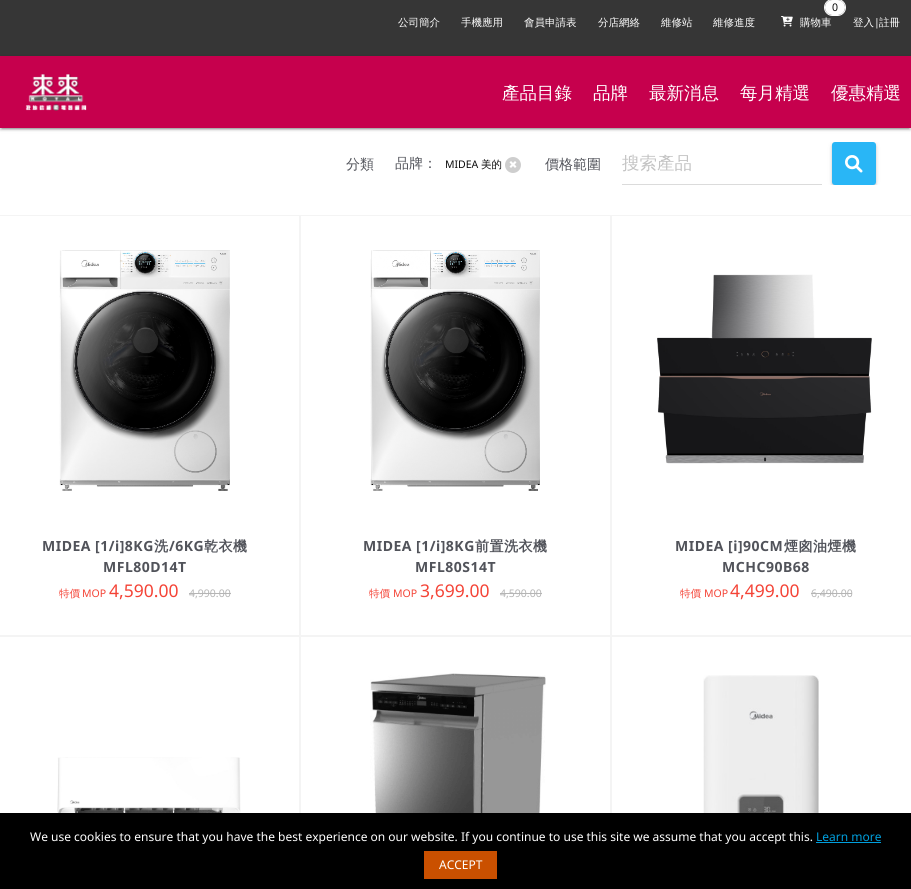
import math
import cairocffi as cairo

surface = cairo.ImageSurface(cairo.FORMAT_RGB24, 911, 889)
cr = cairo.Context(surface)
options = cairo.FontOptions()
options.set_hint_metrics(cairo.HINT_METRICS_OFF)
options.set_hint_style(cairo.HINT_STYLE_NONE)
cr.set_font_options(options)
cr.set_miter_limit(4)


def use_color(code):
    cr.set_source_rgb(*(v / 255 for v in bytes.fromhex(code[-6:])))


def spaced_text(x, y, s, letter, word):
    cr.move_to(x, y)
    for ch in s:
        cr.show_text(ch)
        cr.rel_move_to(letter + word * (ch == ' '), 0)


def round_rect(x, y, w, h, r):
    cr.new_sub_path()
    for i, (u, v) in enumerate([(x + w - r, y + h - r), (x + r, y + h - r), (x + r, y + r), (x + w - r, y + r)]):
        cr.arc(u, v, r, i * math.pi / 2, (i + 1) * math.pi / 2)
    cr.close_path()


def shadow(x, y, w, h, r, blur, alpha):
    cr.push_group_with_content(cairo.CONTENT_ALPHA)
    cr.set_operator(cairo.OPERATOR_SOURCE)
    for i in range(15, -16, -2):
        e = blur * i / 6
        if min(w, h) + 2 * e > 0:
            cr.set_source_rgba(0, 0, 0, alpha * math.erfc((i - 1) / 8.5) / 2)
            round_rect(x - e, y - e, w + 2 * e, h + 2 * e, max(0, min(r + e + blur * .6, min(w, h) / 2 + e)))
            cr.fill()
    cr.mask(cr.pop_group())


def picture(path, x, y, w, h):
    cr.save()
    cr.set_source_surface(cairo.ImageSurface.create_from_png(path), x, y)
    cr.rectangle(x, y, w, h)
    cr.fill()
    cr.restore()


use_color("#ffffff")
cr.paint()
use_color("#363636")
cr.rectangle(0, 0, 911, 56)
cr.fill()
cr.select_font_face("WenQuanYi Zen Hei Medium")
cr.set_font_size(10.5)
use_color("#ffffff")
cr.move_to(398, 26)
cr.show_text("公司簡介")
cr.move_to(461, 26)
cr.show_text("手機應用")
cr.move_to(524, 26)
cr.show_text("會員申請表")
cr.move_to(598, 26)
cr.show_text("分店網絡")
cr.move_to(661, 26)
cr.show_text("維修站")
cr.move_to(713, 26)
cr.show_text("維修進度")
round_rect(824.5, -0.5, 21, 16, 8)
cr.set_line_width(1)
cr.stroke()
round_rect(825, 0, 20, 15, 7.5)
cr.fill()
cr.select_font_face("Noto Sans")
use_color("#0a0a0a")
cr.move_to(832, 11)
cr.show_text("0")
picture("img1.png", 781, 16, 12, 11)
cr.select_font_face("WenQuanYi Zen Hei Medium")
use_color("#ffffff")
cr.move_to(800, 26)
cr.show_text("購物車")
cr.move_to(853, 26)
cr.show_text("登入")
cr.select_font_face("Noto Sans")
cr.move_to(874, 26)
cr.show_text("|")
cr.select_font_face("WenQuanYi Zen Hei Medium")
cr.move_to(879, 26)
cr.show_text("註冊")
use_color("#000000")
shadow(0, 57, 911, 72, 0, 2.5, 0.12)
shadow(0, 58, 911, 72, 0, 1, 0.14)
shadow(2, 61, 907, 68, 0, 0.5, 0.2)
use_color("#c6004d")
cr.rectangle(0, 56, 911, 72)
cr.fill()
picture("img2.png", 25, 74, 62, 37)
cr.set_font_size(17.5)
use_color("#ffffff")
cr.move_to(502, 99)
cr.show_text("產品目錄")
cr.move_to(593, 99)
cr.show_text("品牌")
cr.move_to(649, 99)
cr.show_text("最新消息")
cr.move_to(740, 99)
cr.show_text("每月精選")
cr.move_to(831, 99)
cr.show_text("優惠精選")
cr.set_font_size(14)
use_color("#51535a")
cr.move_to(346, 169)
cr.show_text("分類")
cr.move_to(395, 168)
cr.show_text("品牌：")
cr.select_font_face("Noto Sans")
cr.set_font_size(10.5)
use_color("#0a0a0a")
cr.move_to(445, 168)
cr.show_text("MIDEA")
cr.select_font_face("WenQuanYi Zen Hei Medium")
cr.move_to(481, 168)
cr.show_text("美的")
use_color("#cecece")
cr.new_path()
cr.arc(513, 165, 8, 0, 2 * math.pi)
cr.fill()
use_color("#ffffff")
cr.new_path()
cr.move_to(511, 161)
cr.line_to(516.5, 166.5)
cr.line_to(515, 168)
cr.line_to(509.5, 162.5)
cr.close_path()
cr.fill()
cr.new_path()
cr.move_to(515, 161)
cr.line_to(516.5, 162.5)
cr.line_to(511, 168)
cr.line_to(509.5, 166.5)
cr.close_path()
cr.fill()
cr.set_font_size(14)
use_color("#51535a")
cr.move_to(545, 169)
cr.show_text("價格範圍")
use_color("#dbdbdb")
cr.rectangle(622, 184, 200, 1)
cr.fill()
cr.set_font_size(17.5)
use_color("#c3c3c3")
cr.move_to(622, 169)
cr.show_text("搜索產品")
cr.save()
cr.rectangle(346, 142, 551, 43)
cr.clip()
use_color("#000000")
shadow(832, 143, 44, 43, 3, 2.5, 0.12)
shadow(832, 144, 44, 43, 3, 1, 0.14)
cr.restore()
use_color("#29b6f6")
round_rect(832, 142, 44, 43, 3)
cr.fill()
picture("img3.png", 845, 155, 18, 18)
cr.rectangle(-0.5, 215.5, 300, 420)
use_color("#f4f4f4")
cr.stroke()
picture("img4.png", 59, 250, 171, 241)
cr.select_font_face("Noto Sans", cairo.FONT_SLANT_NORMAL, cairo.FONT_WEIGHT_BOLD)
cr.set_font_size(14)
use_color("#51535a")
spaced_text(42, 551, "MIDEA [1/i]8KG", 0.5, 0)
cr.select_font_face("WenQuanYi Zen Hei", cairo.FONT_SLANT_NORMAL, cairo.FONT_WEIGHT_BOLD)
spaced_text(154, 551, "洗", 0.5, 0)
cr.select_font_face("Noto Sans", cairo.FONT_SLANT_NORMAL, cairo.FONT_WEIGHT_BOLD)
spaced_text(169, 551, "/6KG", 0.5, 0)
cr.select_font_face("WenQuanYi Zen Hei", cairo.FONT_SLANT_NORMAL, cairo.FONT_WEIGHT_BOLD)
spaced_text(204, 551, "乾衣機", 0.5, 0)
cr.select_font_face("Noto Sans", cairo.FONT_SLANT_NORMAL, cairo.FONT_WEIGHT_BOLD)
spaced_text(103, 572, "MFL80D14T", 0.5, 0)
cr.select_font_face("WenQuanYi Zen Hei Medium")
cr.set_font_size(10.5)
use_color("#f44336")
cr.move_to(59, 597)
cr.show_text("特價")
cr.select_font_face("Noto Sans")
cr.move_to(82, 597)
cr.show_text("MOP")
cr.set_font_size(17.5)
cr.move_to(109, 597)
cr.show_text("4,590.00")
cr.set_font_size(10.5)
use_color("#b5b5b5")
cr.move_to(189, 597)
cr.show_text("4,990.00")
cr.rectangle(189, 593, 42, 1)
cr.fill()
cr.rectangle(300.5, 215.5, 310, 420)
use_color("#f4f4f4")
cr.stroke()
picture("img5.png", 370, 250, 170, 241)
cr.select_font_face("Noto Sans", cairo.FONT_SLANT_NORMAL, cairo.FONT_WEIGHT_BOLD)
cr.set_font_size(14)
use_color("#51535a")
spaced_text(363, 551, "MIDEA [1/i]8KG", 0.5, 0)
cr.select_font_face("WenQuanYi Zen Hei", cairo.FONT_SLANT_NORMAL, cairo.FONT_WEIGHT_BOLD)
spaced_text(475, 551, "前置洗衣機", 0.5, 0)
cr.select_font_face("Noto Sans", cairo.FONT_SLANT_NORMAL, cairo.FONT_WEIGHT_BOLD)
spaced_text(415, 572, "MFL80S14T", 0.5, 0)
cr.select_font_face("WenQuanYi Zen Hei Medium")
cr.set_font_size(10.5)
use_color("#f44336")
cr.move_to(369, 597)
cr.show_text("特價")
cr.select_font_face("Noto Sans")
cr.move_to(393, 597)
cr.show_text("MOP")
cr.set_font_size(17.5)
cr.move_to(420, 597)
cr.show_text("3,699.00")
cr.set_font_size(10.5)
use_color("#b5b5b5")
cr.move_to(500, 597)
cr.show_text("4,590.00")
cr.rectangle(500, 593, 42, 1)
cr.fill()
cr.rectangle(611.5, 215.5, 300, 420)
use_color("#f4f4f4")
cr.stroke()
picture("img6.png", 657, 274, 215, 190)
cr.select_font_face("Noto Sans", cairo.FONT_SLANT_NORMAL, cairo.FONT_WEIGHT_BOLD)
cr.set_font_size(14)
use_color("#51535a")
spaced_text(675, 551, "MIDEA [i]90CM", 0.5, 0)
cr.select_font_face("WenQuanYi Zen Hei", cairo.FONT_SLANT_NORMAL, cairo.FONT_WEIGHT_BOLD)
spaced_text(784, 551, "煙囪油煙機", 0.5, 0)
cr.select_font_face("Noto Sans", cairo.FONT_SLANT_NORMAL, cairo.FONT_WEIGHT_BOLD)
spaced_text(722, 572, "MCHC90B68", 0.5, 0)
cr.select_font_face("WenQuanYi Zen Hei Medium")
cr.set_font_size(10.5)
use_color("#f44336")
cr.move_to(680, 597)
cr.show_text("特價")
cr.select_font_face("Noto Sans")
cr.move_to(704, 597)
cr.show_text("MOP")
cr.set_font_size(17.5)
cr.move_to(730, 597)
cr.show_text("4,499.00")
cr.set_font_size(10.5)
use_color("#b5b5b5")
cr.move_to(811, 597)
cr.show_text("6,490.00")
cr.rectangle(811, 593, 41, 1)
cr.fill()
cr.rectangle(-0.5, 636.5, 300, 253)
use_color("#f4f4f4")
cr.stroke()
picture("img7.png", 57, 757, 184, 56)
cr.rectangle(300.5, 636.5, 310, 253)
cr.stroke()
picture("img8.png", 370, 673, 176, 140)
cr.rectangle(611.5, 636.5, 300, 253)
cr.stroke()
picture("img9.png", 703, 675, 116, 138)
use_color("#000000")
cr.rectangle(0, 813, 911, 76)
cr.fill()
cr.set_font_size(12)
use_color("#ffffff")
cr.move_to(30, 841)
cr.show_text("We use cookies to ensure that you have the best experience on our website. If you continue to use this site we assume that you accept this.")
use_color("#009fdd")
cr.move_to(816, 841)
cr.show_text("Learn more")
cr.rectangle(816, 842, 65, 1)
cr.fill()
use_color("#ca5000")
cr.rectangle(424, 851, 73, 28)
cr.fill()
use_color("#ffffff")
cr.move_to(439, 869)
cr.show_text("ACCEPT")
surface.write_to_png("result.png")
